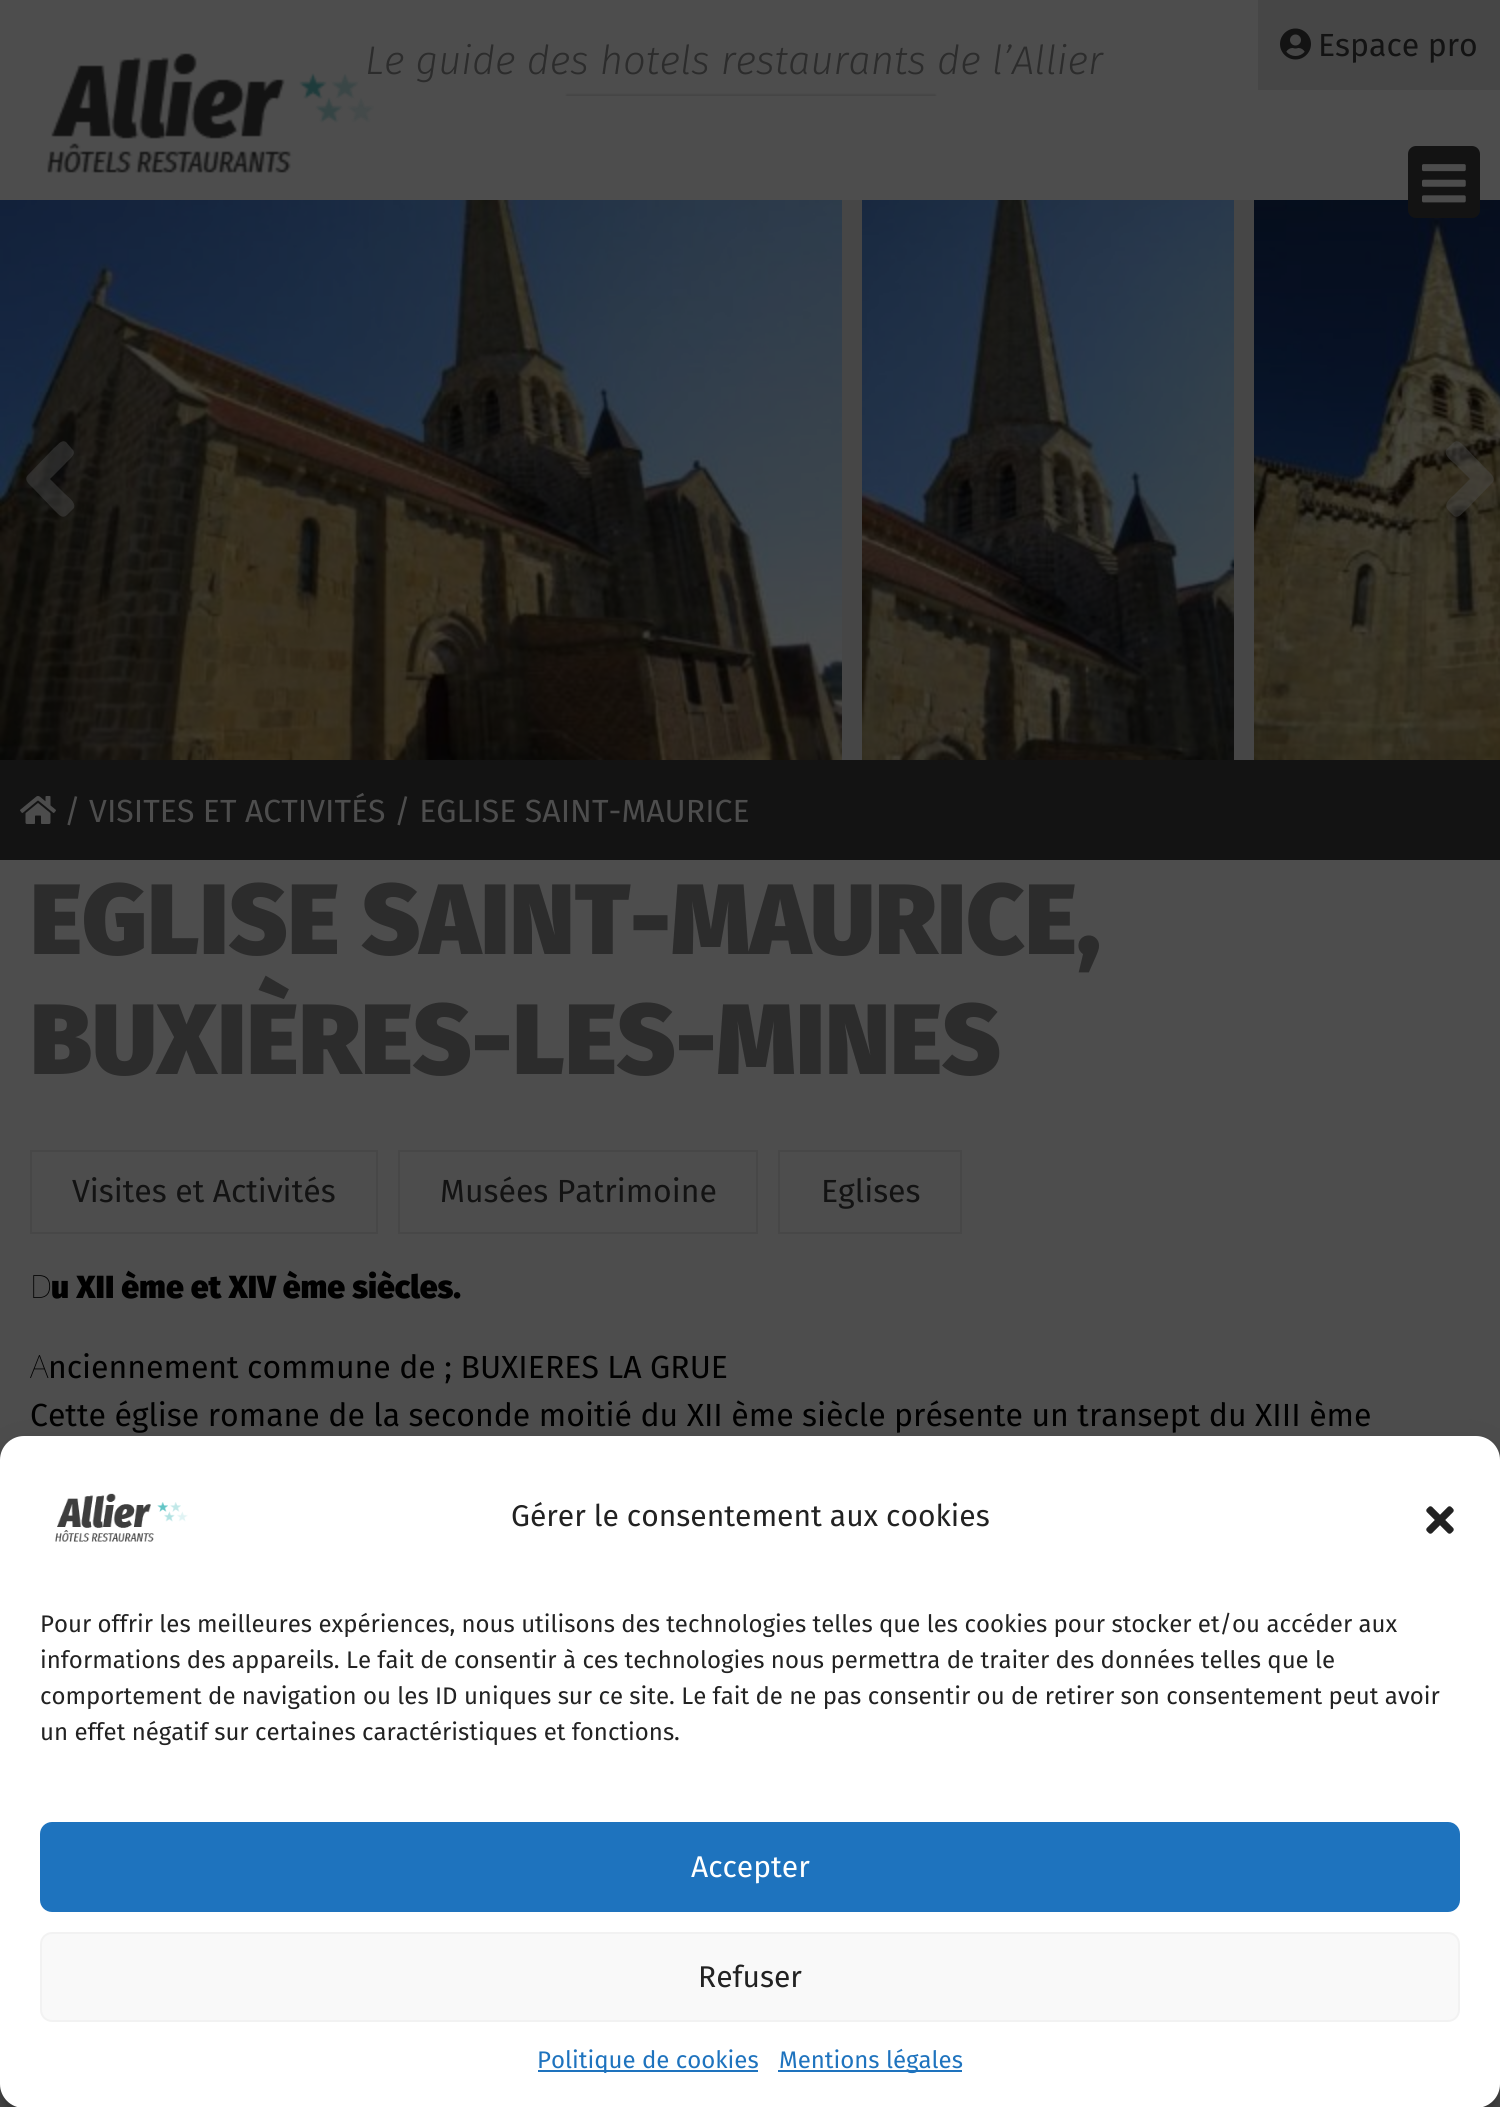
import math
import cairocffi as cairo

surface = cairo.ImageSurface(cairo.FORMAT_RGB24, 1500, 2107)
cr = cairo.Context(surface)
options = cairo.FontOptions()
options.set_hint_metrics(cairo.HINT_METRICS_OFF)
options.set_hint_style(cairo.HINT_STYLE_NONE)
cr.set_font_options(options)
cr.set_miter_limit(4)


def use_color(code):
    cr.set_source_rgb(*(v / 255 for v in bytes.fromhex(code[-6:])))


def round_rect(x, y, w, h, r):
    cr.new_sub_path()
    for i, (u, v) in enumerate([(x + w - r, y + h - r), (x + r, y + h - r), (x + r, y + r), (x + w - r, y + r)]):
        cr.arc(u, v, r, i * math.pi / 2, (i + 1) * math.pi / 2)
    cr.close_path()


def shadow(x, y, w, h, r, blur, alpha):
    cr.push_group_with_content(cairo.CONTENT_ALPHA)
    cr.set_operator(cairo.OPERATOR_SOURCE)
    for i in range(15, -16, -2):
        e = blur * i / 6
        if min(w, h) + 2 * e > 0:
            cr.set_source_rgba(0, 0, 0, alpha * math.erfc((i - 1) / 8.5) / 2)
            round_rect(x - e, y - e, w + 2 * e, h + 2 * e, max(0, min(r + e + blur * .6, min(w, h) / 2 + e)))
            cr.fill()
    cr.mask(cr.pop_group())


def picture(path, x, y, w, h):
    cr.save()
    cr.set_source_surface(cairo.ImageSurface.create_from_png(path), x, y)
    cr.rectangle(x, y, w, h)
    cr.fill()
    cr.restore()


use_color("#4d4d4d")
cr.paint()
cr.select_font_face("Fira Sans Light", cairo.FONT_SLANT_ITALIC)
cr.set_font_size(40)
use_color("#2c2c2c")
cr.move_to(365, 74)
cr.show_text("Le guide des hotels restaurants de l’Allier")
picture("img1.png", 47, 53, 327, 120)
picture("img2.png", 565, 93, 372, 3)
use_color("#464646")
cr.rectangle(1258, 0, 242, 90)
cr.fill()
picture("img3.png", 1280, 28, 31, 32)
cr.select_font_face("Fira Sans")
cr.set_font_size(32)
use_color("#131313")
cr.move_to(1318, 56)
cr.show_text("Espace pro")
picture("img7.png", 1254, 200, 246, 560)
round_rect(1408, 146, 72, 72, 8)
cr.fill()
picture("img4.png", 1422, 164, 44, 39)
use_color("#464646")
cr.rectangle(842, 200, 412, 560)
cr.fill()
picture("img5.png", 0, 200, 842, 560)
picture("img6.png", 862, 200, 372, 560)
cr.set_source_rgba(0.302, 0.302, 0.302, 0.45)
cr.new_path()
cr.move_to(28, 475)
cr.line_to(54, 448)
cr.curve_to(57, 446, 61, 439, 66, 442)
cr.line_to(72, 449)
cr.curve_to(78, 454, 68, 460, 65, 464)
cr.line_to(50, 479)
cr.line_to(65, 494)
cr.curve_to(68, 497, 76, 502, 74, 508)
cr.line_to(69, 513)
cr.curve_to(63, 520, 60, 516, 54, 510)
cr.line_to(33, 488)
cr.curve_to(30, 485, 23, 480, 28, 475)
cr.close_path()
cr.fill()
cr.new_path()
cr.move_to(1492, 483)
cr.line_to(1466, 510)
cr.curve_to(1463, 512, 1459, 519, 1454, 516)
cr.line_to(1449, 511)
cr.curve_to(1442, 504, 1450, 499, 1455, 494)
cr.line_to(1470, 479)
cr.line_to(1455, 464)
cr.curve_to(1452, 461, 1444, 456, 1446, 450)
cr.line_to(1451, 445)
cr.curve_to(1457, 438, 1460, 442, 1466, 448)
cr.line_to(1487, 470)
cr.curve_to(1490, 473, 1497, 478, 1492, 483)
cr.close_path()
cr.fill()
use_color("#131313")
cr.rectangle(0, 760, 1500, 100)
cr.fill()
picture("img8.png", 20, 796, 36, 28)
use_color("#4d4d4d")
cr.move_to(64, 822)
cr.show_text("/ VISITES ET ACTIVITÉS / EGLISE SAINT-MAURICE")
cr.select_font_face("Fira Sans Black")
cr.set_font_size(100)
use_color("#2c2c2c")
cr.move_to(30, 954)
cr.show_text("EGLISE SAINT-MAURICE,")
cr.move_to(30, 1074)
cr.show_text("BUXIÈRES-LES-MINES")
cr.rectangle(31, 1151, 346, 82)
use_color("#474747")
cr.stroke()
cr.select_font_face("Fira Sans")
cr.set_font_size(32)
use_color("#131313")
cr.move_to(72, 1202)
cr.show_text("Visites et Activités")
cr.rectangle(399, 1151, 358, 82)
use_color("#474747")
cr.stroke()
use_color("#131313")
cr.move_to(440, 1202)
cr.show_text("Musées Patrimoine")
cr.rectangle(779, 1151, 182, 82)
use_color("#474747")
cr.stroke()
use_color("#131313")
cr.move_to(821, 1202)
cr.show_text("Eglises")
cr.select_font_face("Noto Sans Thin")
use_color("#000000")
cr.move_to(30, 1298)
cr.show_text("D")
cr.select_font_face("Fira Sans Black")
cr.move_to(51, 1298)
cr.show_text("u XII ème et XIV ème siècles.")
cr.select_font_face("Noto Sans Thin")
cr.move_to(30, 1378)
cr.show_text("A")
cr.select_font_face("Fira Sans")
cr.move_to(48, 1378)
cr.show_text("nciennement commune de ; BUXIERES LA GRUE")
cr.move_to(30, 1426)
cr.show_text("Cette église romane de la seconde moitié du XII ème siècle présente un transept du XIII ème")
use_color("#000000")
shadow(0, 1448, 1500, 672, 24, 6, 0.23)
shadow(0, 1456, 1500, 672, 24, 20, 0.19)
use_color("#ffffff")
round_rect(0, 1436, 1500, 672, 24)
cr.fill()
picture("img9.png", 55, 1493, 133, 49)
cr.set_font_size(30)
use_color("#222222")
cr.move_to(511, 1526)
cr.show_text("Gérer le consentement aux cookies")
picture("img10.png", 1426, 1506, 28, 28)
cr.set_font_size(24)
cr.move_to(40, 1632)
cr.show_text("Pour offrir les meilleures expériences, nous utilisons des technologies telles que les cookies pour stocker et/ou accéder aux")
cr.move_to(40, 1668)
cr.show_text("informations des appareils. Le fait de consentir à ces technologies nous permettra de traiter des données telles que le")
cr.move_to(40, 1704)
cr.show_text("comportement de navigation ou les ID uniques sur ce site. Le fait de ne pas consentir ou de retirer son consentement peut avoir")
cr.move_to(40, 1740)
cr.show_text("un effet négatif sur certaines caractéristiques et fonctions.")
use_color("#1e73be")
round_rect(41, 1823, 1418, 88, 11)
cr.fill_preserve()
cr.stroke()
cr.set_font_size(30)
use_color("#ffffff")
cr.move_to(691, 1877)
cr.show_text("Accepter")
use_color("#f9f9f9")
round_rect(41, 1933, 1418, 88, 11)
cr.fill_preserve()
use_color("#f2f2f2")
cr.stroke()
use_color("#222222")
cr.move_to(698, 1987)
cr.show_text("Refuser")
use_color("#1e73be")
cr.rectangle(538, 2070, 220, 2)
cr.fill()
cr.set_font_size(24)
cr.move_to(537, 2068)
cr.show_text("Politique de cookies")
cr.rectangle(778, 2070, 184, 2)
cr.fill()
cr.move_to(779, 2068)
cr.show_text("Mentions légales")
surface.write_to_png("result.png")
